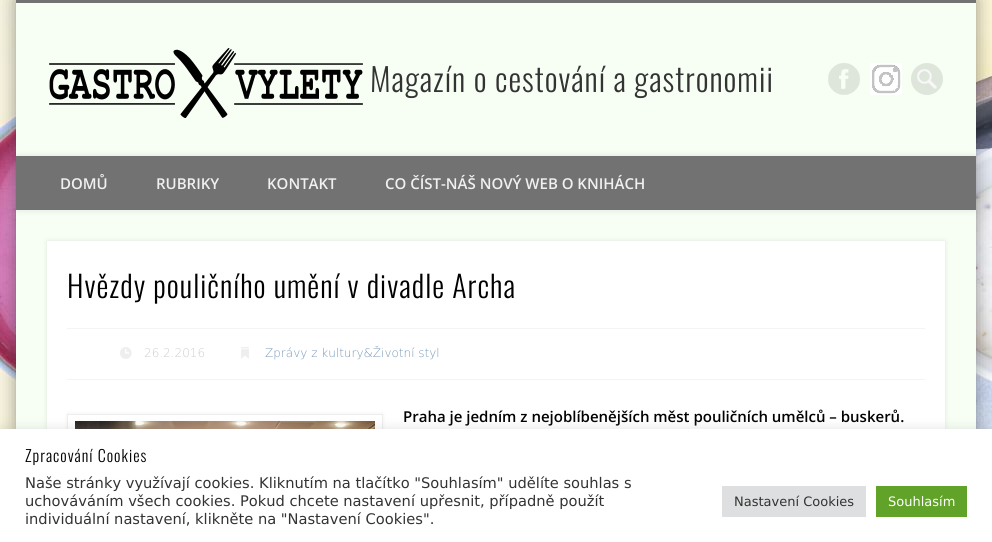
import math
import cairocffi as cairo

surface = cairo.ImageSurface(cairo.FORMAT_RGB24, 992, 542)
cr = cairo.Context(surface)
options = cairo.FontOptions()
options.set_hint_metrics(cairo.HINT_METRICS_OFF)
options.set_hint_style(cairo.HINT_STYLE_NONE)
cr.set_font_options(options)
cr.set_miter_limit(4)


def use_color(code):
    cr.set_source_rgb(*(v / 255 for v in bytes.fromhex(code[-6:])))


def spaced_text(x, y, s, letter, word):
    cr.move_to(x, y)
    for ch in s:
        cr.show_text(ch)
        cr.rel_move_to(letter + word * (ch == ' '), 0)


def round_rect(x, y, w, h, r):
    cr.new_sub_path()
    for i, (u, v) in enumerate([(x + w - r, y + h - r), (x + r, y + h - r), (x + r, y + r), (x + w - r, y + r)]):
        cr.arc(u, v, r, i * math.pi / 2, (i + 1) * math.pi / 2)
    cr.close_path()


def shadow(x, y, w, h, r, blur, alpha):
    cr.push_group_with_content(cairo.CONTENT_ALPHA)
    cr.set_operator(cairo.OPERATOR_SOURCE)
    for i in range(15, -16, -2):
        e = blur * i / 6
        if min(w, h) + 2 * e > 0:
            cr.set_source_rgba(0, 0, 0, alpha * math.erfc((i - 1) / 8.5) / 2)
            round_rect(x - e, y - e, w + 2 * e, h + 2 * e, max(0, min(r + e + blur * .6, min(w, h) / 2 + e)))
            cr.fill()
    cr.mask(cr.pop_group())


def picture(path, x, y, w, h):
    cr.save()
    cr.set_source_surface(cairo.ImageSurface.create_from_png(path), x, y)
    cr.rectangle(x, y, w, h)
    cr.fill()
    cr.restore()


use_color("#ffffff")
cr.paint()
picture("img1.png", 0, 0, 992, 429)
use_color("#000000")
shadow(16, 0, 960, 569, 0, 9, 0.4)
use_color("#f7fff4")
cr.rectangle(16, 3, 960, 426)
cr.fill()
use_color("#727272")
cr.rectangle(16, 0, 960, 3)
cr.fill()
picture("img2.png", 49, 48, 314, 70)
cr.select_font_face("Oswald Light")
cr.set_font_size(32)
use_color("#333333")
spaced_text(370, 92, "Magazín o cestování a gastronomii", 1, 0)
picture("img3.png", 828, 63, 32, 32)
picture("img4.png", 870, 63, 32, 32)
use_color("#dee6dc")
cr.arc(927, 79, 16, 0, 2 * math.pi)
cr.fill()
picture("img5.png", 917, 69, 20, 20)
cr.save()
cr.rectangle(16, 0, 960, 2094)
cr.clip()
use_color("#000000")
shadow(16, 156, 960, 54, 0, 3.5, 0.1)
cr.restore()
use_color("#727272")
cr.rectangle(16, 156, 960, 54)
cr.fill()
cr.select_font_face("Open Sans SemiBold")
cr.set_font_size(15)
use_color("#f0f0f0")
cr.move_to(60, 189)
cr.show_text("DOMŮ")
cr.move_to(156, 189)
cr.show_text("RUBRIKY")
cr.move_to(267, 189)
cr.show_text("KONTAKT")
cr.move_to(385, 189)
cr.show_text("CO ČÍST-NÁŠ NOVÝ WEB O KNIHÁCH")
use_color("#000000")
shadow(47, 241, 898, 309, 0, 2.5, 0.1)
use_color("#ffffff")
cr.rectangle(47, 241, 898, 188)
cr.fill()
cr.select_font_face("Oswald Light")
cr.set_font_size(30)
use_color("#000000")
spaced_text(67, 298, "Hvězdy pouličního umění v divadle Archa", 1, 0)
use_color("#f4f4f4")
cr.rectangle(67, 328, 858, 1)
cr.fill()
cr.rectangle(67, 379, 858, 1)
cr.fill()
picture("img6.png", 120, 347, 12, 12)
cr.select_font_face("DejaVu Sans ExtraLight")
cr.set_font_size(12)
use_color("#cccccc")
cr.move_to(144, 357)
cr.show_text("26.2.2016")
picture("img7.png", 241, 347, 8, 12)
use_color("#7597b9")
cr.move_to(265, 357)
cr.show_text("Zprávy z kultury&Životní styl")
cr.save()
cr.set_fill_rule(cairo.FILL_RULE_EVEN_ODD)
cr.new_path()
cr.move_to(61, 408)
cr.line_to(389, 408)
cr.line_to(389, 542)
cr.line_to(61, 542)
cr.close_path()
cr.move_to(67, 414)
cr.line_to(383, 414)
cr.line_to(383, 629)
cr.line_to(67, 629)
cr.close_path()
cr.clip()
use_color("#eeeeee")
shadow(67, 414, 316, 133, 0, 1.5, 1)
cr.restore()
cr.rectangle(67.5, 414.5, 315, 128)
use_color("#eeeeee")
cr.set_line_width(1)
cr.stroke()
picture("img8.png", 75, 421, 300, 8)
cr.select_font_face("Open Sans SemiBold")
cr.set_font_size(15)
use_color("#000000")
cr.move_to(403, 422)
cr.show_text("Praha je jedním z nejoblíbenějších měst pouličních umělců – buskerů.")
use_color("#acabab")
shadow(0, 428, 992, 113, 0, 5, 0.3)
use_color("#ffffff")
cr.rectangle(0, 429, 992, 113)
cr.fill()
cr.select_font_face("Oswald Light")
cr.set_font_size(16)
use_color("#000000")
spaced_text(25, 462, "Zpracování Cookies", 1, 0)
cr.select_font_face("DejaVu Sans")
cr.set_font_size(14.65)
use_color("#333333")
cr.move_to(25, 488)
cr.show_text("Naše stránky využívají cookies. Kliknutím na tlačítko \"Souhlasím\" udělíte souhlas s")
cr.move_to(25, 506)
cr.show_text("uchováváním všech cookies. Pokud chcete nastavení upřesnit, případně použít")
cr.move_to(25, 524)
cr.show_text("individuální nastavení, klikněte na \"Nastavení Cookies\".")
use_color("#dedfe0")
cr.rectangle(722, 486, 144, 31)
cr.fill()
cr.set_font_size(13)
use_color("#333333")
cr.move_to(734, 506)
cr.show_text("Nastavení Cookies")
use_color("#61a229")
cr.rectangle(876, 486, 91, 31)
cr.fill()
use_color("#ffffff")
cr.move_to(888, 506)
cr.show_text("Souhlasím")
surface.write_to_png("result.png")
